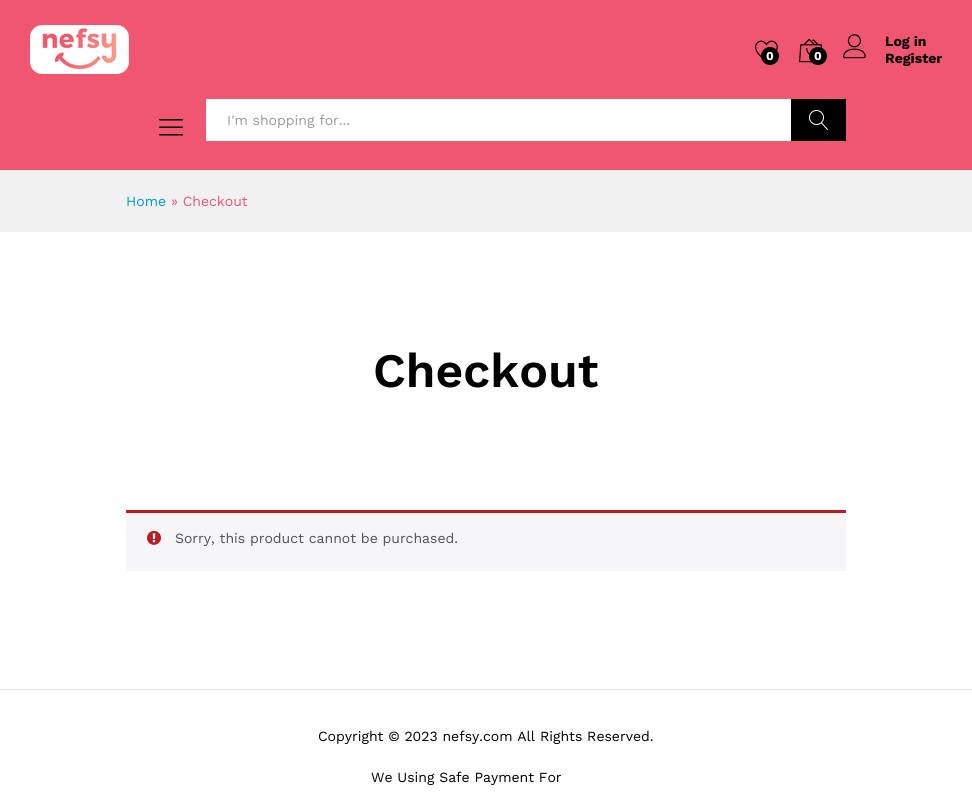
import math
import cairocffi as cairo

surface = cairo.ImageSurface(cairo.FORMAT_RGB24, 972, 806)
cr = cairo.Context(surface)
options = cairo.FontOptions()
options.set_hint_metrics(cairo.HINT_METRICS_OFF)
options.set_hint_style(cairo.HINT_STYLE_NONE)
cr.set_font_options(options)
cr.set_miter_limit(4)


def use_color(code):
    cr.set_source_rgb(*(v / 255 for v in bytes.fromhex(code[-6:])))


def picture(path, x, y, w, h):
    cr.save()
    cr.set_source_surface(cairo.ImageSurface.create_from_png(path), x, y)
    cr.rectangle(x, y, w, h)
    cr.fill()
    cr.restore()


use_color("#ffffff")
cr.paint()
use_color("#f0566f")
cr.rectangle(0, 0, 972, 170)
cr.fill()
picture("img1.png", 30, 25, 99, 49)
picture("img2.png", 755, 40, 23, 18)
use_color("#000000")
cr.arc(770, 56, 9, 0, 2 * math.pi)
cr.fill()
cr.select_font_face("Work Sans", cairo.FONT_SLANT_NORMAL, cairo.FONT_WEIGHT_BOLD)
cr.set_font_size(12)
use_color("#ffffff")
cr.move_to(766, 60)
cr.show_text("0")
picture("img3.png", 799, 38, 24, 25)
use_color("#000000")
cr.arc(818, 56, 9, 0, 2 * math.pi)
cr.fill()
use_color("#ffffff")
cr.move_to(814, 60)
cr.show_text("0")
picture("img4.png", 843, 34, 23, 25)
cr.set_font_size(14)
use_color("#000000")
cr.move_to(885, 46)
cr.show_text("Log in")
cr.move_to(885, 63)
cr.show_text("Register")
picture("img5.png", 159, 119, 24, 17)
use_color("#ffffff")
cr.rectangle(206, 99, 585, 42)
cr.fill()
cr.select_font_face("Work Sans")
use_color("#999999")
cr.move_to(227, 125)
cr.show_text("I'm shopping for...")
use_color("#000000")
cr.rectangle(791, 99, 55, 42)
cr.fill()
picture("img6.png", 809, 110, 19, 20)
use_color("#f1f1f1")
cr.rectangle(0, 170, 972, 62)
cr.fill()
use_color("#0099cc")
cr.move_to(126, 206)
cr.show_text("Home")
use_color("#f0566f")
cr.move_to(171, 206)
cr.show_text("» Checkout")
cr.select_font_face("Work Sans SemiBold")
cr.set_font_size(48)
use_color("#000000")
cr.move_to(373, 387)
cr.show_text("Checkout")
use_color("#f6f5f8")
cr.rectangle(126, 513, 720, 58)
cr.fill()
use_color("#b81c23")
cr.rectangle(126, 510, 720, 3)
cr.fill()
picture("img7.png", 147, 530, 14, 15)
cr.select_font_face("Work Sans")
cr.set_font_size(14)
use_color("#515151")
cr.move_to(175, 543)
cr.show_text("Sorry, this product cannot be purchased.")
use_color("#e1e1e1")
cr.rectangle(0, 689, 972, 1)
cr.fill()
use_color("#000000")
cr.move_to(318, 741)
cr.show_text("Copyright © 2023 nefsy.com All Rights Reserved.")
cr.move_to(371, 782)
cr.show_text("We Using Safe Payment For")
surface.write_to_png("result.png")
